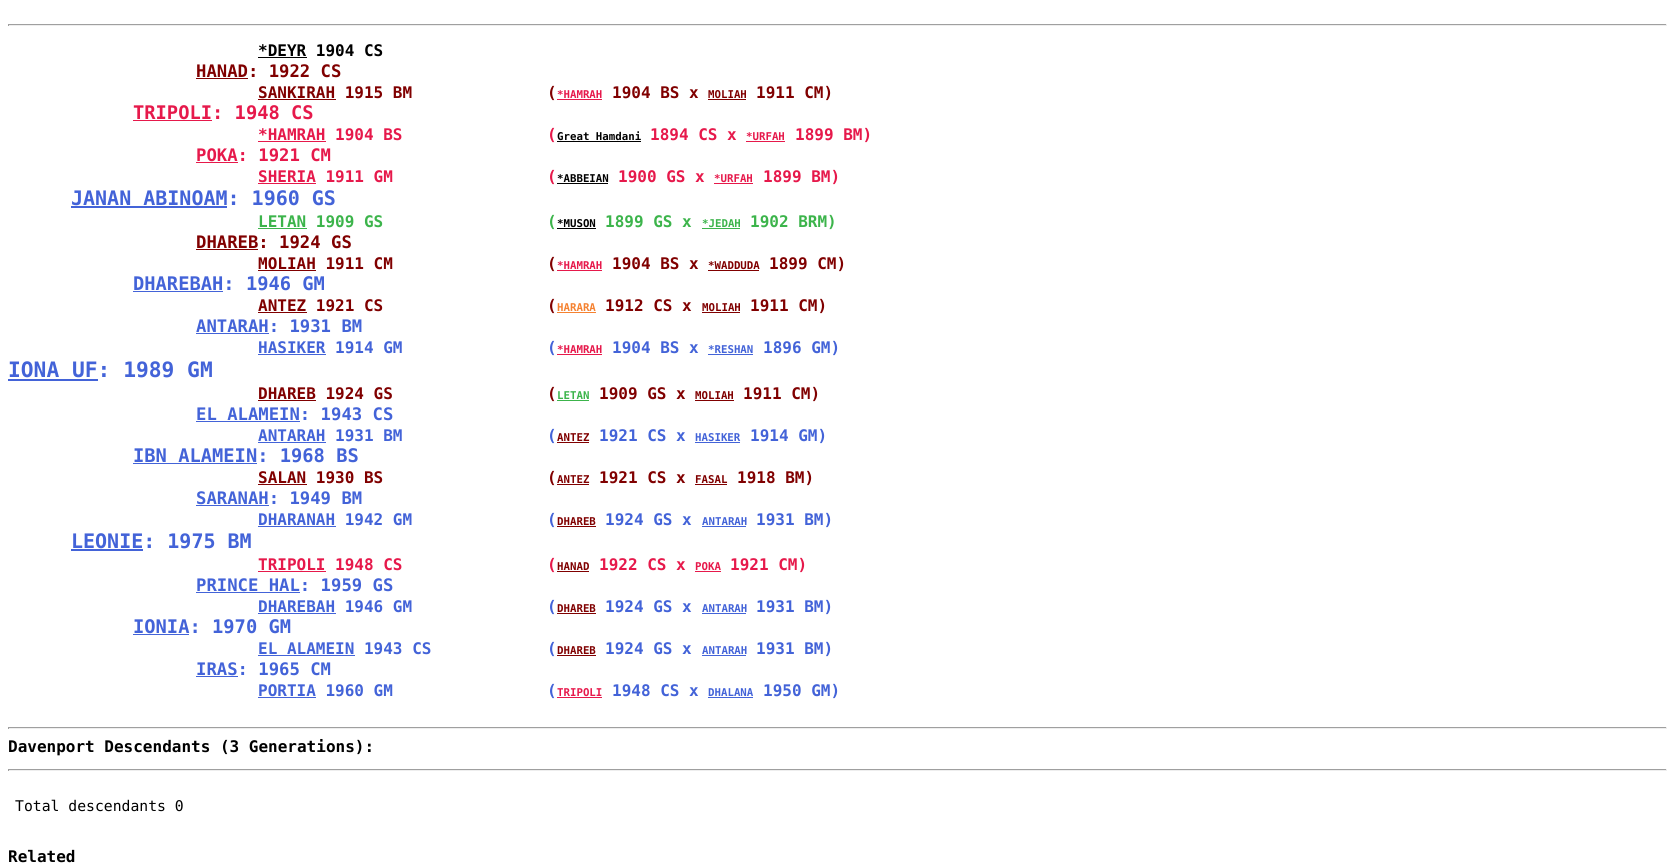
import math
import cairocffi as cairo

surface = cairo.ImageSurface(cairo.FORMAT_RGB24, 1675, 864)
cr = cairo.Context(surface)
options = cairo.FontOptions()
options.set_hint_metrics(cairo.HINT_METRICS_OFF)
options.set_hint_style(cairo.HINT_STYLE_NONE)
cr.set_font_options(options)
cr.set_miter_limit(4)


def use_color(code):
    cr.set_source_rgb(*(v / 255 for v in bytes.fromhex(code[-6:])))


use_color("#ffffff")
cr.paint()
use_color("#9f9f9f")
cr.rectangle(8, 24, 1659, 1)
cr.fill()
use_color("#eeeeee")
cr.rectangle(1666, 24, 1, 2)
cr.fill()
cr.rectangle(8, 25, 1659, 1)
cr.fill()
use_color("#9f9f9f")
cr.rectangle(8, 24, 1, 2)
cr.fill()
cr.select_font_face("DejaVu Sans Mono", cairo.FONT_SLANT_NORMAL, cairo.FONT_WEIGHT_BOLD)
cr.set_font_size(16)
use_color("#000000")
cr.move_to(258, 56)
cr.show_text("*DEYR 1904 CS")
cr.rectangle(258, 57, 49, 1)
cr.fill()
cr.set_font_size(17.25)
use_color("#800000")
cr.move_to(196, 77)
cr.show_text("HANAD: 1922 CS")
cr.rectangle(196, 78, 52, 1)
cr.fill()
cr.set_font_size(16)
cr.move_to(258, 98)
cr.show_text("SANKIRAH 1915 BM")
cr.rectangle(258, 99, 78, 1)
cr.fill()
cr.move_to(547, 98)
cr.show_text("(")
cr.set_font_size(10.75)
use_color("#e6194b")
cr.move_to(557, 98)
cr.show_text("*HAMRAH")
cr.rectangle(557, 99, 45, 1)
cr.fill()
cr.set_font_size(16)
use_color("#800000")
cr.move_to(612, 98)
cr.show_text("1904 BS x")
cr.set_font_size(10.75)
cr.move_to(708, 98)
cr.show_text("MOLIAH")
cr.rectangle(708, 99, 38, 1)
cr.fill()
cr.set_font_size(16)
cr.move_to(756, 98)
cr.show_text("1911 CM)")
cr.set_font_size(18.75)
use_color("#e6194b")
cr.move_to(133, 119)
cr.show_text("TRIPOLI: 1948 CS")
cr.rectangle(133, 120, 79, 1)
cr.fill()
cr.set_font_size(16)
cr.move_to(258, 140)
cr.show_text("*HAMRAH 1904 BS")
cr.rectangle(258, 141, 68, 1)
cr.fill()
cr.move_to(547, 140)
cr.show_text("(")
cr.set_font_size(10.75)
use_color("#000000")
cr.move_to(557, 140)
cr.show_text("Great Hamdani")
cr.rectangle(557, 141, 84, 1)
cr.fill()
cr.set_font_size(16)
use_color("#e6194b")
cr.move_to(650, 140)
cr.show_text("1894 CS x")
cr.set_font_size(10.75)
cr.move_to(746, 140)
cr.show_text("*URFAH")
cr.rectangle(746, 141, 39, 1)
cr.fill()
cr.set_font_size(16)
cr.move_to(795, 140)
cr.show_text("1899 BM)")
cr.set_font_size(17.25)
cr.move_to(196, 161)
cr.show_text("POKA: 1921 CM")
cr.rectangle(196, 162, 42, 1)
cr.fill()
cr.set_font_size(16)
cr.move_to(258, 182)
cr.show_text("SHERIA 1911 GM")
cr.rectangle(258, 183, 58, 1)
cr.fill()
cr.move_to(547, 182)
cr.show_text("(")
cr.set_font_size(10.75)
use_color("#000000")
cr.move_to(557, 182)
cr.show_text("*ABBEIAN")
cr.rectangle(557, 183, 51, 1)
cr.fill()
cr.set_font_size(16)
use_color("#e6194b")
cr.move_to(618, 182)
cr.show_text("1900 GS x")
cr.set_font_size(10.75)
cr.move_to(714, 182)
cr.show_text("*URFAH")
cr.rectangle(714, 183, 39, 1)
cr.fill()
cr.set_font_size(16)
cr.move_to(763, 182)
cr.show_text("1899 BM)")
cr.set_font_size(20)
use_color("#4363d8")
cr.move_to(71, 205)
cr.show_text("JANAN ABINOAM: 1960 GS")
cr.rectangle(71, 206, 156, 2)
cr.fill()
cr.set_font_size(16)
use_color("#3cb44b")
cr.move_to(258, 227)
cr.show_text("LETAN 1909 GS")
cr.rectangle(258, 228, 49, 1)
cr.fill()
cr.move_to(547, 227)
cr.show_text("(")
cr.set_font_size(10.75)
use_color("#000000")
cr.move_to(557, 227)
cr.show_text("*MUSON")
cr.rectangle(557, 228, 39, 1)
cr.fill()
cr.set_font_size(16)
use_color("#3cb44b")
cr.move_to(605, 227)
cr.show_text("1899 GS x")
cr.set_font_size(10.75)
cr.move_to(702, 227)
cr.show_text("*JEDAH")
cr.rectangle(702, 228, 38, 1)
cr.fill()
cr.set_font_size(16)
cr.move_to(750, 227)
cr.show_text("1902 BRM)")
cr.set_font_size(17.25)
use_color("#800000")
cr.move_to(196, 248)
cr.show_text("DHAREB: 1924 GS")
cr.rectangle(196, 249, 62, 1)
cr.fill()
cr.set_font_size(16)
cr.move_to(258, 269)
cr.show_text("MOLIAH 1911 CM")
cr.rectangle(258, 270, 58, 1)
cr.fill()
cr.move_to(547, 269)
cr.show_text("(")
cr.set_font_size(10.75)
use_color("#e6194b")
cr.move_to(557, 269)
cr.show_text("*HAMRAH")
cr.rectangle(557, 270, 45, 1)
cr.fill()
cr.set_font_size(16)
use_color("#800000")
cr.move_to(612, 269)
cr.show_text("1904 BS x")
cr.set_font_size(10.75)
cr.move_to(708, 269)
cr.show_text("*WADDUDA")
cr.rectangle(708, 270, 51, 1)
cr.fill()
cr.set_font_size(16)
cr.move_to(769, 269)
cr.show_text("1899 CM)")
cr.set_font_size(18.75)
use_color("#4363d8")
cr.move_to(133, 290)
cr.show_text("DHAREBAH: 1946 GM")
cr.rectangle(133, 291, 90, 1)
cr.fill()
cr.set_font_size(16)
use_color("#800000")
cr.move_to(258, 311)
cr.show_text("ANTEZ 1921 CS")
cr.rectangle(258, 312, 49, 1)
cr.fill()
cr.move_to(547, 311)
cr.show_text("(")
cr.set_font_size(10.75)
use_color("#f58231")
cr.move_to(557, 311)
cr.show_text("HARARA")
cr.rectangle(557, 312, 39, 1)
cr.fill()
cr.set_font_size(16)
use_color("#800000")
cr.move_to(605, 311)
cr.show_text("1912 CS x")
cr.set_font_size(10.75)
cr.move_to(702, 311)
cr.show_text("MOLIAH")
cr.rectangle(702, 312, 38, 1)
cr.fill()
cr.set_font_size(16)
cr.move_to(750, 311)
cr.show_text("1911 CM)")
cr.set_font_size(17.25)
use_color("#4363d8")
cr.move_to(196, 332)
cr.show_text("ANTARAH: 1931 BM")
cr.rectangle(196, 333, 73, 1)
cr.fill()
cr.set_font_size(16)
cr.move_to(258, 353)
cr.show_text("HASIKER 1914 GM")
cr.rectangle(258, 354, 68, 1)
cr.fill()
cr.move_to(547, 353)
cr.show_text("(")
cr.set_font_size(10.75)
use_color("#e6194b")
cr.move_to(557, 353)
cr.show_text("*HAMRAH")
cr.rectangle(557, 354, 45, 1)
cr.fill()
cr.set_font_size(16)
use_color("#4363d8")
cr.move_to(612, 353)
cr.show_text("1904 BS x")
cr.set_font_size(10.75)
cr.move_to(708, 353)
cr.show_text("*RESHAN")
cr.rectangle(708, 354, 45, 1)
cr.fill()
cr.set_font_size(16)
cr.move_to(763, 353)
cr.show_text("1896 GM)")
cr.set_font_size(21.25)
cr.move_to(8, 377)
cr.show_text("IONA UF: 1989 GM")
cr.rectangle(8, 379, 90, 2)
cr.fill()
cr.set_font_size(16)
use_color("#800000")
cr.move_to(258, 399)
cr.show_text("DHAREB 1924 GS")
cr.rectangle(258, 400, 58, 1)
cr.fill()
cr.move_to(547, 399)
cr.show_text("(")
cr.set_font_size(10.75)
use_color("#3cb44b")
cr.move_to(557, 399)
cr.show_text("LETAN")
cr.rectangle(557, 400, 32, 1)
cr.fill()
cr.set_font_size(16)
use_color("#800000")
cr.move_to(599, 399)
cr.show_text("1909 GS x")
cr.set_font_size(10.75)
cr.move_to(695, 399)
cr.show_text("MOLIAH")
cr.rectangle(695, 400, 39, 1)
cr.fill()
cr.set_font_size(16)
cr.move_to(743, 399)
cr.show_text("1911 CM)")
cr.set_font_size(17.25)
use_color("#4363d8")
cr.move_to(196, 420)
cr.show_text("EL ALAMEIN: 1943 CS")
cr.rectangle(196, 421, 104, 1)
cr.fill()
cr.set_font_size(16)
cr.move_to(258, 441)
cr.show_text("ANTARAH 1931 BM")
cr.rectangle(258, 442, 68, 1)
cr.fill()
cr.move_to(547, 441)
cr.show_text("(")
cr.set_font_size(10.75)
use_color("#800000")
cr.move_to(557, 441)
cr.show_text("ANTEZ")
cr.rectangle(557, 442, 32, 1)
cr.fill()
cr.set_font_size(16)
use_color("#4363d8")
cr.move_to(599, 441)
cr.show_text("1921 CS x")
cr.set_font_size(10.75)
cr.move_to(695, 441)
cr.show_text("HASIKER")
cr.rectangle(695, 442, 45, 1)
cr.fill()
cr.set_font_size(16)
cr.move_to(750, 441)
cr.show_text("1914 GM)")
cr.set_font_size(18.75)
cr.move_to(133, 462)
cr.show_text("IBN ALAMEIN: 1968 BS")
cr.rectangle(133, 463, 124, 1)
cr.fill()
cr.set_font_size(16)
use_color("#800000")
cr.move_to(258, 483)
cr.show_text("SALAN 1930 BS")
cr.rectangle(258, 484, 49, 1)
cr.fill()
cr.move_to(547, 483)
cr.show_text("(")
cr.set_font_size(10.75)
cr.move_to(557, 483)
cr.show_text("ANTEZ")
cr.rectangle(557, 484, 32, 1)
cr.fill()
cr.set_font_size(16)
cr.move_to(599, 483)
cr.show_text("1921 CS x")
cr.set_font_size(10.75)
cr.move_to(695, 483)
cr.show_text("FASAL")
cr.rectangle(695, 484, 32, 1)
cr.fill()
cr.set_font_size(16)
cr.move_to(737, 483)
cr.show_text("1918 BM)")
cr.set_font_size(17.25)
use_color("#4363d8")
cr.move_to(196, 504)
cr.show_text("SARANAH: 1949 BM")
cr.rectangle(196, 505, 73, 1)
cr.fill()
cr.set_font_size(16)
cr.move_to(258, 525)
cr.show_text("DHARANAH 1942 GM")
cr.rectangle(258, 526, 78, 1)
cr.fill()
cr.move_to(547, 525)
cr.show_text("(")
cr.set_font_size(10.75)
use_color("#800000")
cr.move_to(557, 525)
cr.show_text("DHAREB")
cr.rectangle(557, 526, 39, 1)
cr.fill()
cr.set_font_size(16)
use_color("#4363d8")
cr.move_to(605, 525)
cr.show_text("1924 GS x")
cr.set_font_size(10.75)
cr.move_to(702, 525)
cr.show_text("ANTARAH")
cr.rectangle(702, 526, 44, 1)
cr.fill()
cr.set_font_size(16)
cr.move_to(756, 525)
cr.show_text("1931 BM)")
cr.set_font_size(20)
cr.move_to(71, 548)
cr.show_text("LEONIE: 1975 BM")
cr.rectangle(71, 549, 72, 2)
cr.fill()
cr.set_font_size(16)
use_color("#e6194b")
cr.move_to(258, 570)
cr.show_text("TRIPOLI 1948 CS")
cr.rectangle(258, 571, 68, 1)
cr.fill()
cr.move_to(547, 570)
cr.show_text("(")
cr.set_font_size(10.75)
use_color("#800000")
cr.move_to(557, 570)
cr.show_text("HANAD")
cr.rectangle(557, 571, 32, 1)
cr.fill()
cr.set_font_size(16)
use_color("#e6194b")
cr.move_to(599, 570)
cr.show_text("1922 CS x")
cr.set_font_size(10.75)
cr.move_to(695, 570)
cr.show_text("POKA")
cr.rectangle(695, 571, 26, 1)
cr.fill()
cr.set_font_size(16)
cr.move_to(730, 570)
cr.show_text("1921 CM)")
cr.set_font_size(17.25)
use_color("#4363d8")
cr.move_to(196, 591)
cr.show_text("PRINCE HAL: 1959 GS")
cr.rectangle(196, 592, 104, 1)
cr.fill()
cr.set_font_size(16)
cr.move_to(258, 612)
cr.show_text("DHAREBAH 1946 GM")
cr.rectangle(258, 613, 78, 1)
cr.fill()
cr.move_to(547, 612)
cr.show_text("(")
cr.set_font_size(10.75)
use_color("#800000")
cr.move_to(557, 612)
cr.show_text("DHAREB")
cr.rectangle(557, 613, 39, 1)
cr.fill()
cr.set_font_size(16)
use_color("#4363d8")
cr.move_to(605, 612)
cr.show_text("1924 GS x")
cr.set_font_size(10.75)
cr.move_to(702, 612)
cr.show_text("ANTARAH")
cr.rectangle(702, 613, 44, 1)
cr.fill()
cr.set_font_size(16)
cr.move_to(756, 612)
cr.show_text("1931 BM)")
cr.set_font_size(18.75)
cr.move_to(133, 633)
cr.show_text("IONIA: 1970 GM")
cr.rectangle(133, 634, 56, 1)
cr.fill()
cr.set_font_size(16)
cr.move_to(258, 654)
cr.show_text("EL ALAMEIN 1943 CS")
cr.rectangle(258, 655, 97, 1)
cr.fill()
cr.move_to(547, 654)
cr.show_text("(")
cr.set_font_size(10.75)
use_color("#800000")
cr.move_to(557, 654)
cr.show_text("DHAREB")
cr.rectangle(557, 655, 39, 1)
cr.fill()
cr.set_font_size(16)
use_color("#4363d8")
cr.move_to(605, 654)
cr.show_text("1924 GS x")
cr.set_font_size(10.75)
cr.move_to(702, 654)
cr.show_text("ANTARAH")
cr.rectangle(702, 655, 44, 1)
cr.fill()
cr.set_font_size(16)
cr.move_to(756, 654)
cr.show_text("1931 BM)")
cr.set_font_size(17.25)
cr.move_to(196, 675)
cr.show_text("IRAS: 1965 CM")
cr.rectangle(196, 676, 42, 1)
cr.fill()
cr.set_font_size(16)
cr.move_to(258, 696)
cr.show_text("PORTIA 1960 GM")
cr.rectangle(258, 697, 58, 1)
cr.fill()
cr.move_to(547, 696)
cr.show_text("(")
cr.set_font_size(10.75)
use_color("#e6194b")
cr.move_to(557, 696)
cr.show_text("TRIPOLI")
cr.rectangle(557, 697, 45, 1)
cr.fill()
cr.set_font_size(16)
use_color("#4363d8")
cr.move_to(612, 696)
cr.show_text("1948 CS x")
cr.set_font_size(10.75)
cr.move_to(708, 696)
cr.show_text("DHALANA")
cr.rectangle(708, 697, 45, 1)
cr.fill()
cr.set_font_size(16)
cr.move_to(763, 696)
cr.show_text("1950 GM)")
use_color("#9f9f9f")
cr.rectangle(8, 727, 1659, 1)
cr.fill()
use_color("#eeeeee")
cr.rectangle(1666, 727, 1, 2)
cr.fill()
cr.rectangle(8, 728, 1659, 1)
cr.fill()
use_color("#9f9f9f")
cr.rectangle(8, 727, 1, 2)
cr.fill()
use_color("#000000")
cr.move_to(8, 752)
cr.show_text("Davenport Descendants (3 Generations):")
use_color("#9f9f9f")
cr.rectangle(8, 769, 1659, 1)
cr.fill()
use_color("#eeeeee")
cr.rectangle(1666, 769, 1, 2)
cr.fill()
cr.rectangle(8, 770, 1659, 1)
cr.fill()
use_color("#9f9f9f")
cr.rectangle(8, 769, 1, 2)
cr.fill()
cr.select_font_face("DejaVu Sans Mono")
cr.set_font_size(14.75)
use_color("#000000")
cr.move_to(15, 811)
cr.show_text("Total descendants 0")
cr.select_font_face("DejaVu Sans Mono", cairo.FONT_SLANT_NORMAL, cairo.FONT_WEIGHT_BOLD)
cr.set_font_size(16)
cr.move_to(8, 862)
cr.show_text("Related")
surface.write_to_png("result.png")
